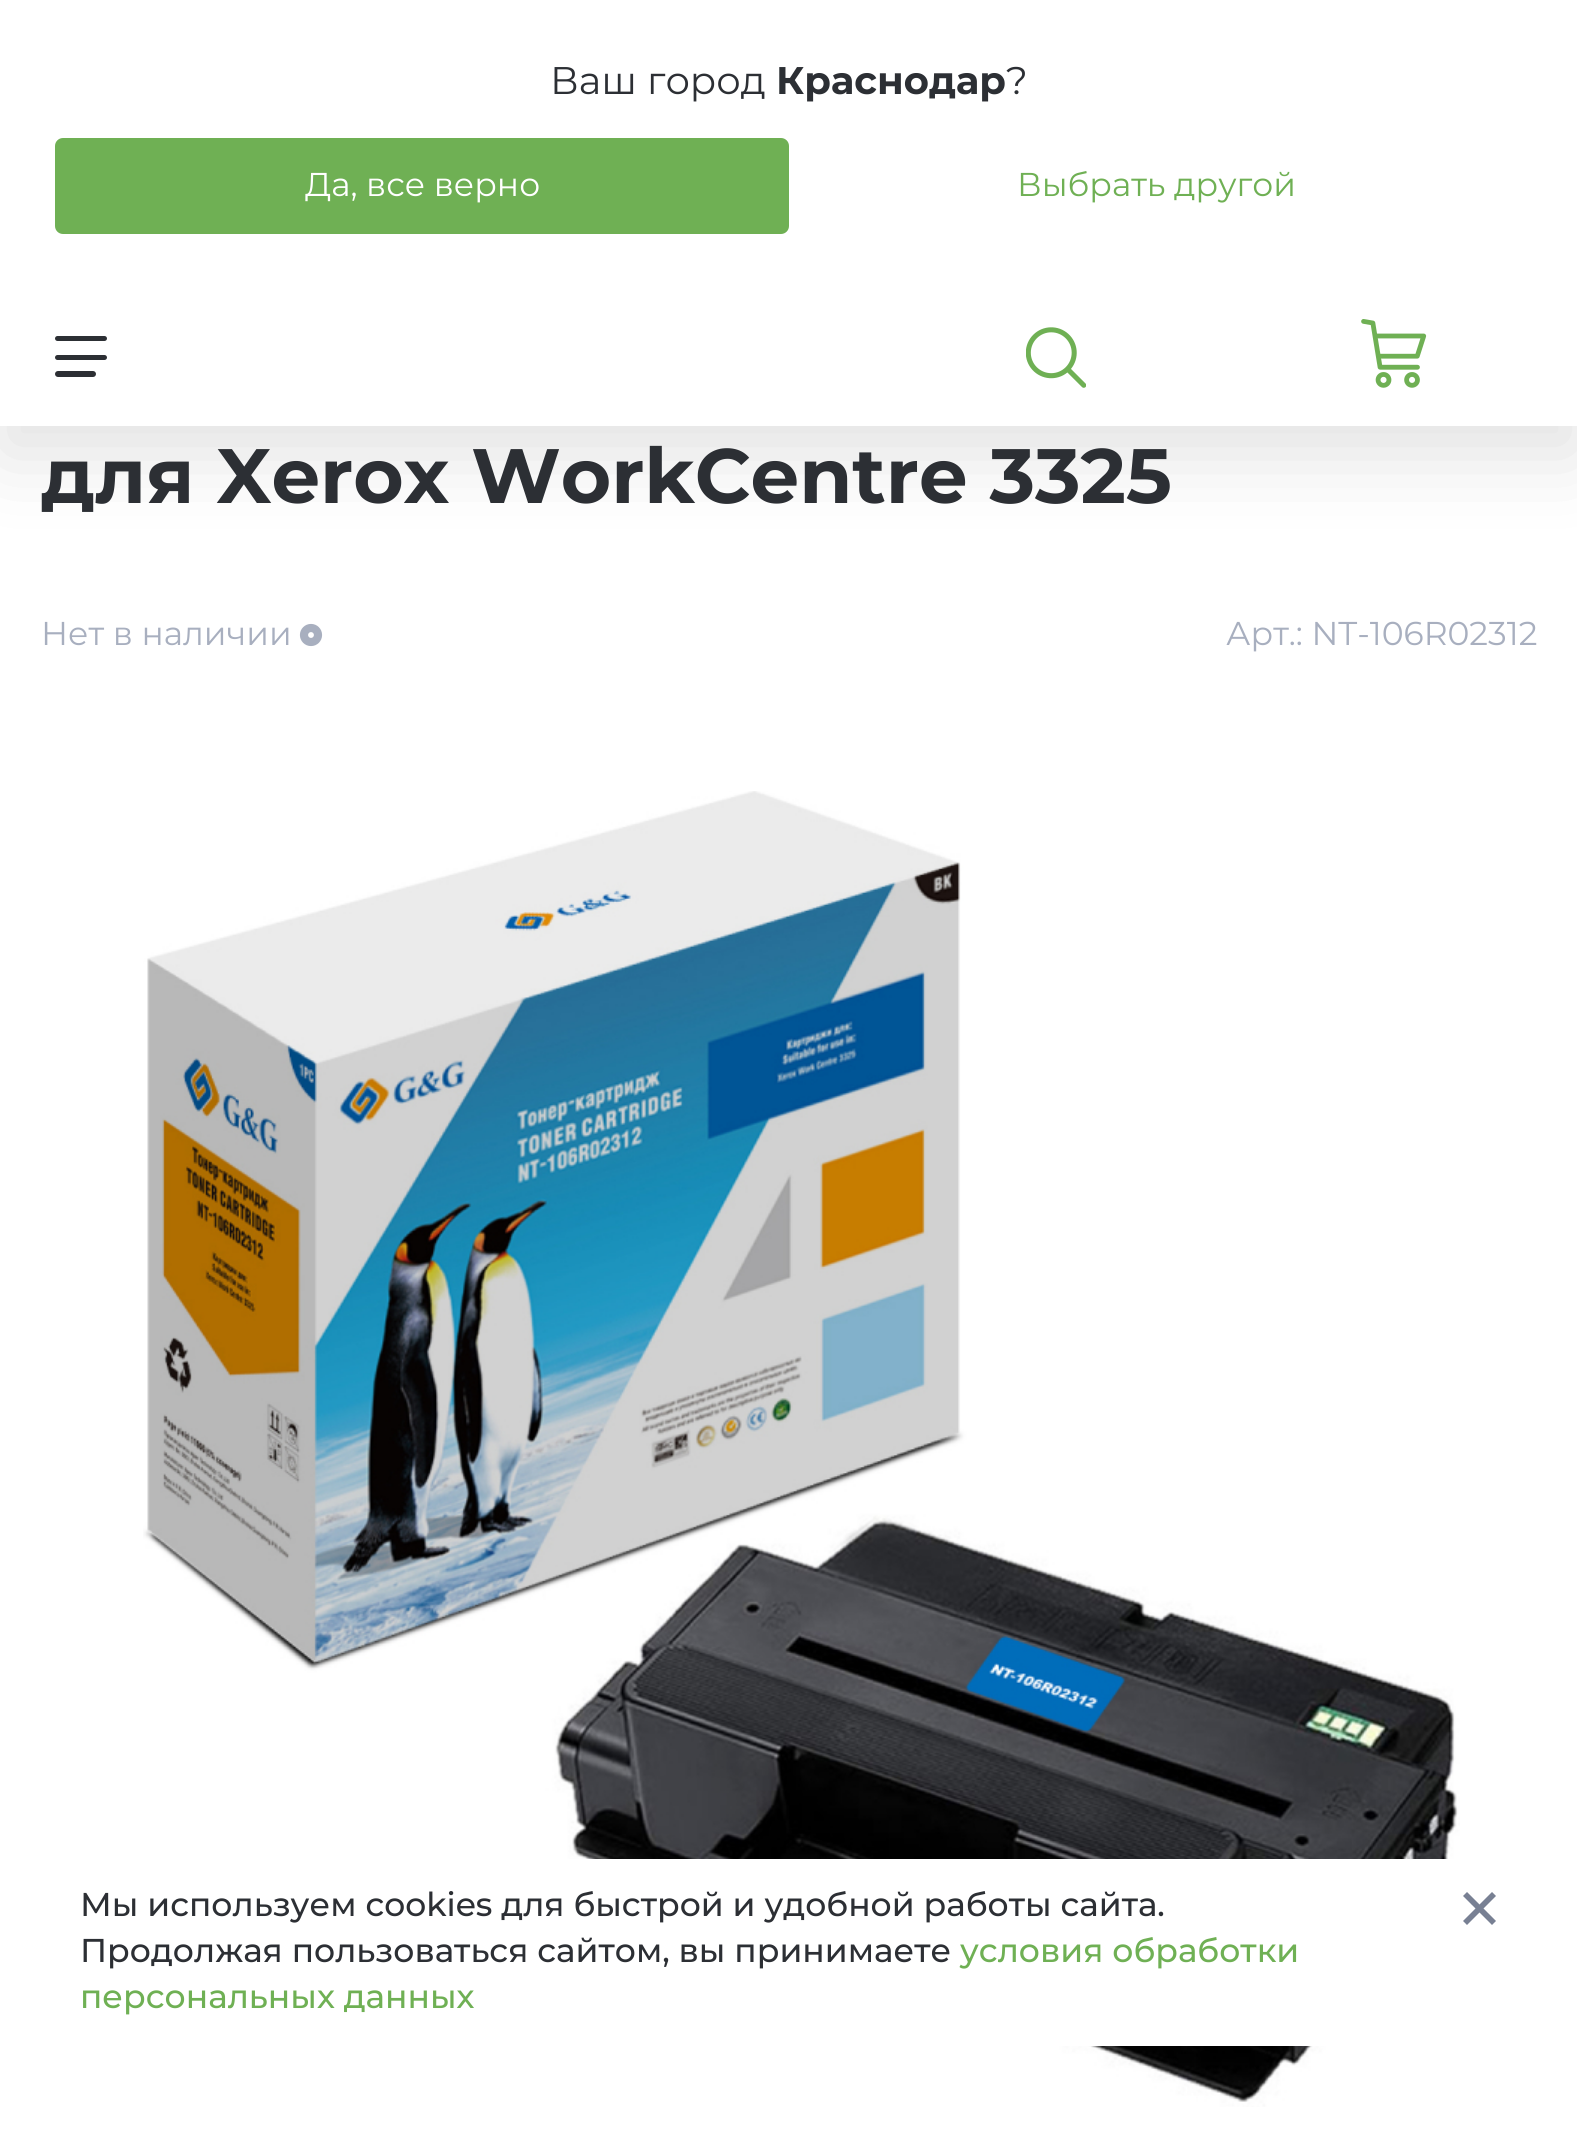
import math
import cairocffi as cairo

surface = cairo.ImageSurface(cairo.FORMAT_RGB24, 1577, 2155)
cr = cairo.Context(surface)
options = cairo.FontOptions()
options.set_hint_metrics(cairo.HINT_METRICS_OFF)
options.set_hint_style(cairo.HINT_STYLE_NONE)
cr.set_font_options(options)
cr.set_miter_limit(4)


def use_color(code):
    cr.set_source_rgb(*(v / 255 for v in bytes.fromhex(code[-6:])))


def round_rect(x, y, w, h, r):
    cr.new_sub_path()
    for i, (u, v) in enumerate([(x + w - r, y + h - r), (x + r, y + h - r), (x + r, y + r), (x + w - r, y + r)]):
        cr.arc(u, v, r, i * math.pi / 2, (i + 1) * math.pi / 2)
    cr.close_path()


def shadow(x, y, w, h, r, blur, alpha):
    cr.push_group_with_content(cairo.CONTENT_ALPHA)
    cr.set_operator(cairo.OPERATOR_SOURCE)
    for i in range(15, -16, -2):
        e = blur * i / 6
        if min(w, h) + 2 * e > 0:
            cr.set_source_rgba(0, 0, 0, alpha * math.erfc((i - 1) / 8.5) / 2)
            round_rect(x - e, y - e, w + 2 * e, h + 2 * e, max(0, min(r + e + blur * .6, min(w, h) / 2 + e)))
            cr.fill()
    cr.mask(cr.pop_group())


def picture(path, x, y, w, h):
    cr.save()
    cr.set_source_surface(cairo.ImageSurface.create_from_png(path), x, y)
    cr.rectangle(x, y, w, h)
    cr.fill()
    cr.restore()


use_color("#ffffff")
cr.paint()
use_color("#393939")
shadow(0, 28, 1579, 426, 0, 41, 0.15)
use_color("#ffffff")
cr.rectangle(0, 0, 1577, 426)
cr.fill()
cr.select_font_face("Montserrat")
cr.set_font_size(38.5)
use_color("#2c2f34")
cr.move_to(550, 94)
cr.show_text("Ваш город")
cr.select_font_face("Montserrat", cairo.FONT_SLANT_NORMAL, cairo.FONT_WEIGHT_BOLD)
cr.move_to(776, 94)
cr.show_text("Краснодар")
cr.select_font_face("Montserrat")
cr.move_to(1006, 94)
cr.show_text("?")
use_color("#6fb054")
round_rect(56.5, 139.5, 731, 93, 6.5)
cr.fill_preserve()
cr.set_line_width(3)
cr.stroke()
cr.set_font_size(33)
use_color("#ffffff")
cr.move_to(305, 196)
cr.show_text("Да, все верно")
use_color("#6fb054")
cr.move_to(1017, 196)
cr.show_text("Выбрать другой")
use_color("#2c2f34")
round_rect(55, 336, 52, 5, 2.5)
cr.fill()
round_rect(55, 355, 52, 5, 2.5)
cr.fill()
round_rect(55, 371, 41, 6, 3)
cr.fill()
picture("img1.png", 1026, 327, 60, 61)
picture("img2.png", 1361, 319, 66, 69)
cr.select_font_face("Montserrat", cairo.FONT_SLANT_NORMAL, cairo.FONT_WEIGHT_BOLD)
cr.set_font_size(77)
cr.move_to(41, 503)
cr.show_text("для Xerox WorkCentre 3325")
cr.select_font_face("Montserrat")
cr.set_font_size(33)
use_color("#a8afbf")
cr.move_to(41, 645)
cr.show_text("Нет в наличии")
cr.new_path()
cr.arc(311, 635, 7, 0, 2 * math.pi)
cr.set_line_width(8.2)
cr.stroke()
cr.move_to(1226, 645)
cr.show_text("Арт.: NT-106R02312")
picture("img3.png", 143, 791, 1317, 1316)
use_color("#ffffff")
round_rect(41, 1859, 1496, 187, 8)
cr.fill()
cr.select_font_face("Montserrat Medium")
use_color("#2c2f34")
cr.move_to(80, 1916)
cr.show_text("Мы используем cookies для быстрой и удобной работы сайта.")
use_color("#788093")
cr.new_path()
cr.move_to(1479.5, 1912.5)
cr.line_to(1467, 1925)
cr.line_to(1463, 1921)
cr.line_to(1475.5, 1908.5)
cr.line_to(1463, 1896)
cr.line_to(1467, 1892)
cr.line_to(1479.5, 1904.5)
cr.line_to(1492, 1892)
cr.line_to(1496, 1896)
cr.line_to(1483.5, 1908.5)
cr.line_to(1496, 1921)
cr.line_to(1492, 1925)
cr.close_path()
cr.fill()
use_color("#2c2f34")
cr.move_to(80, 1962)
cr.show_text("Продолжая пользоваться сайтом, вы принимаете")
use_color("#6fb054")
cr.move_to(960, 1962)
cr.show_text("условия обработки")
cr.move_to(80, 2008)
cr.show_text("персональных данных")
surface.write_to_png("result.png")
